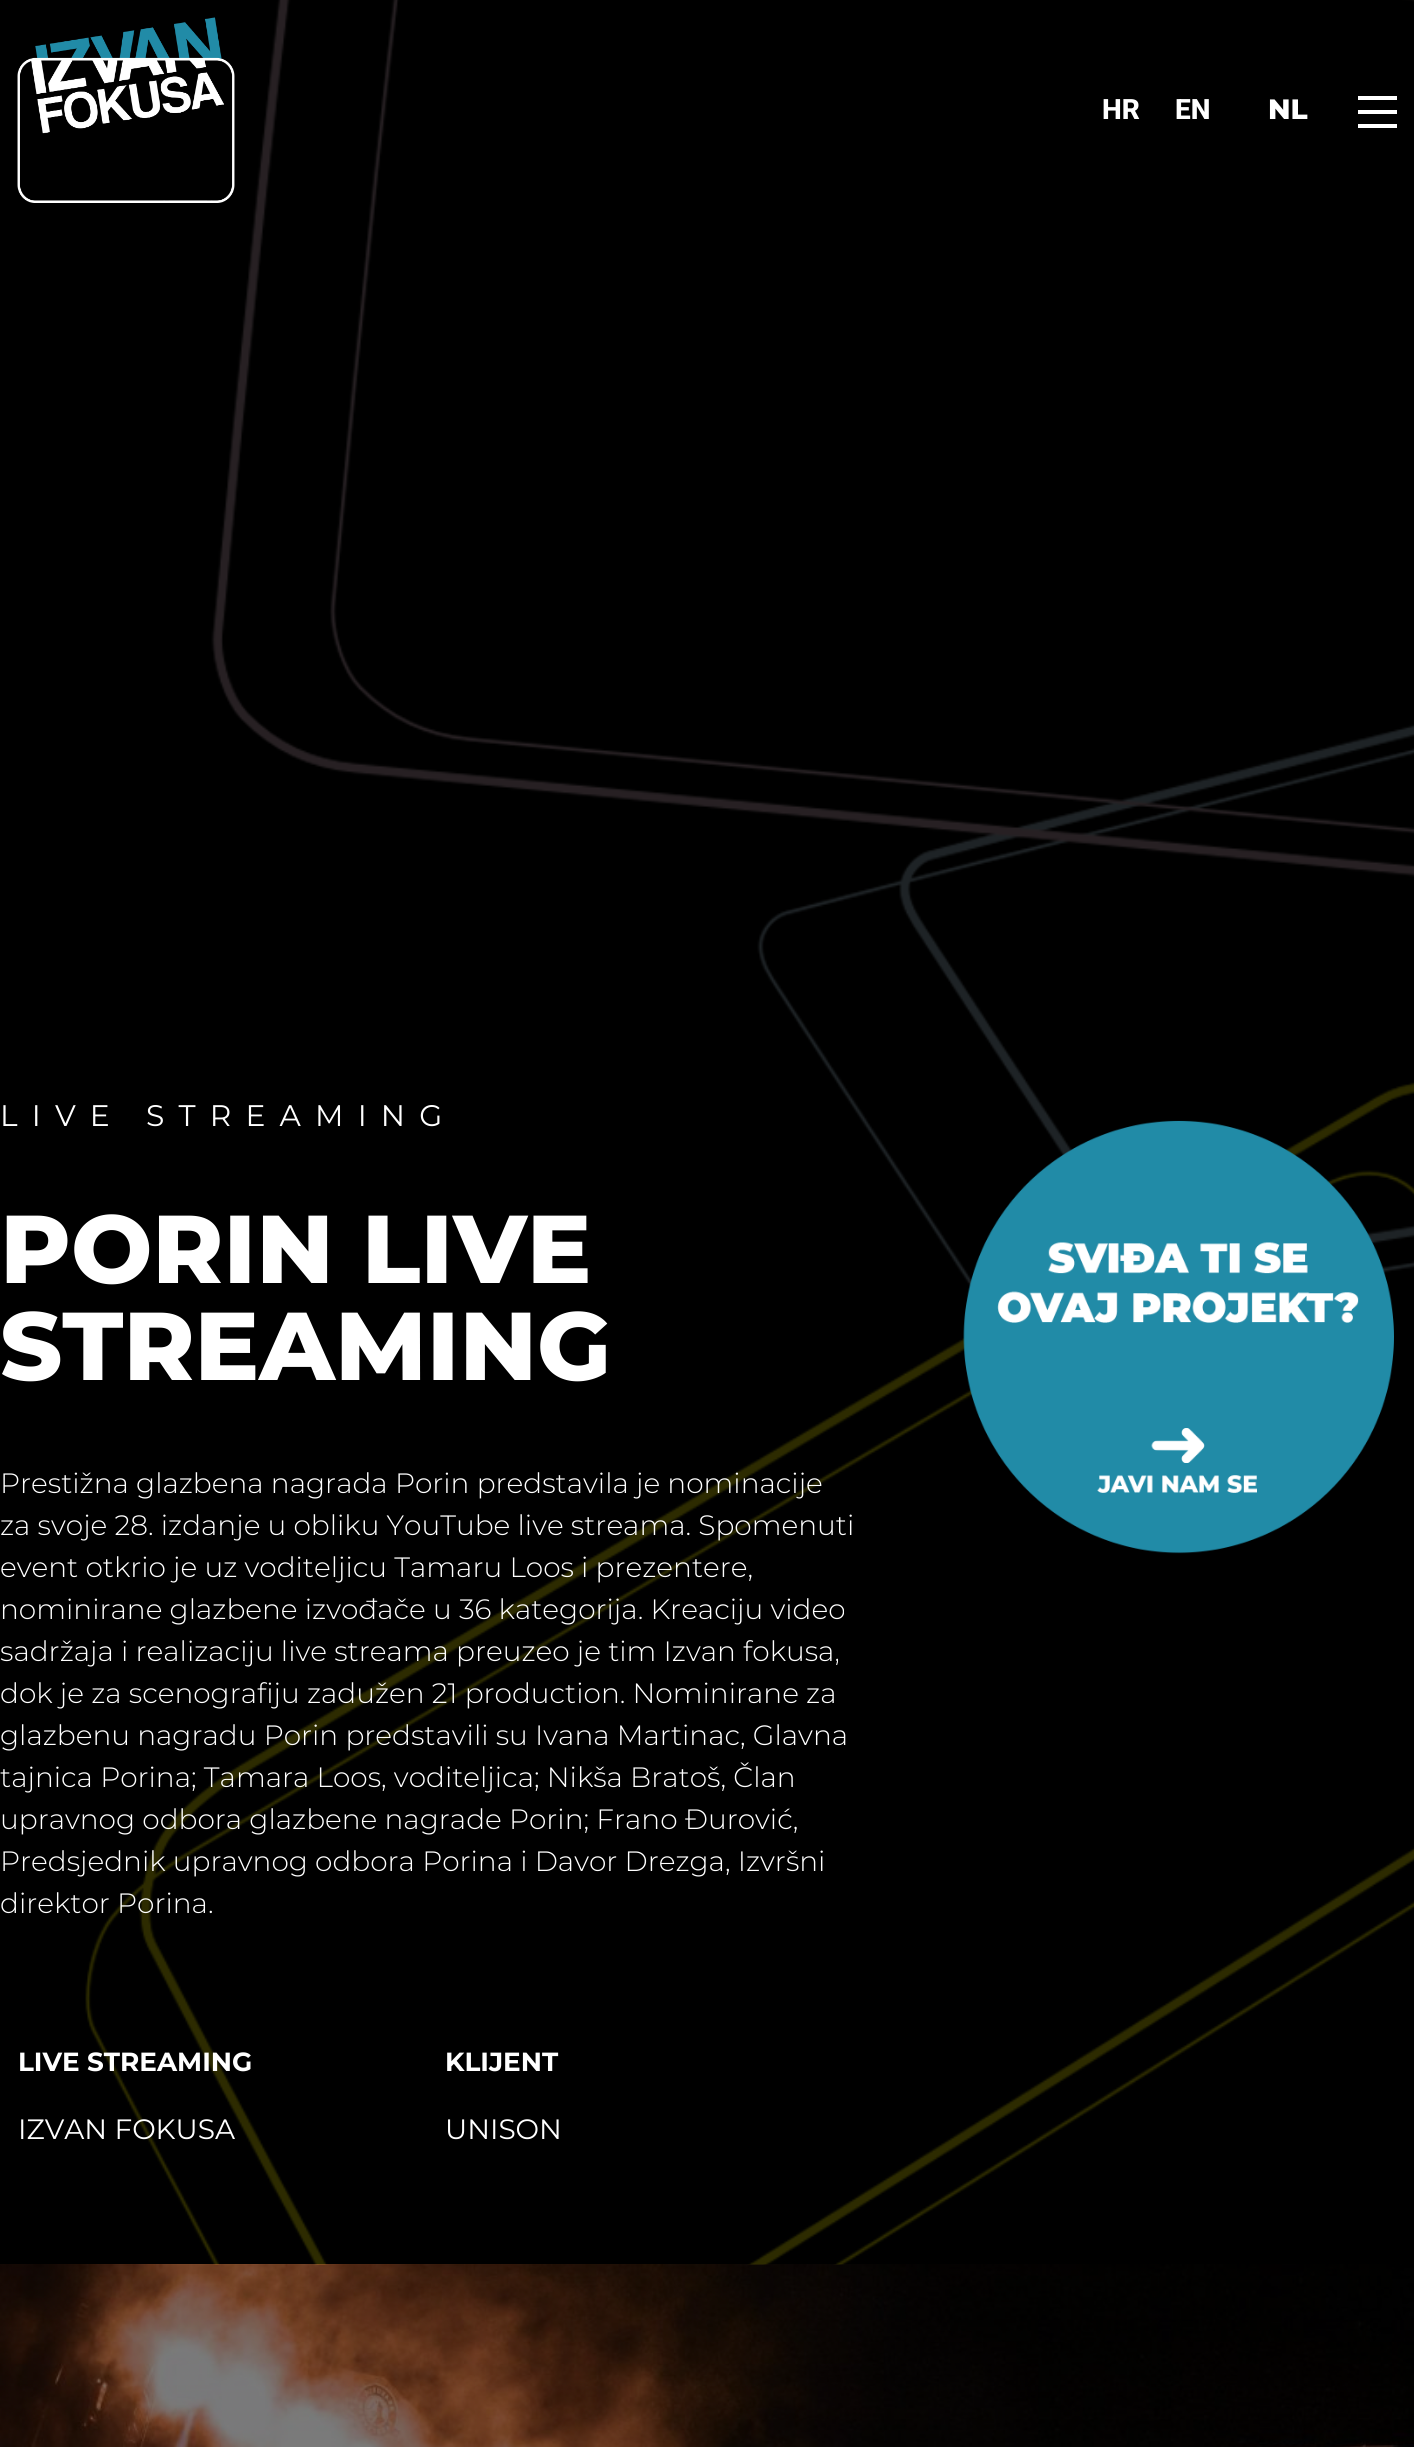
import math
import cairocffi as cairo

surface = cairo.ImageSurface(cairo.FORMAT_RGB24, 1414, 2447)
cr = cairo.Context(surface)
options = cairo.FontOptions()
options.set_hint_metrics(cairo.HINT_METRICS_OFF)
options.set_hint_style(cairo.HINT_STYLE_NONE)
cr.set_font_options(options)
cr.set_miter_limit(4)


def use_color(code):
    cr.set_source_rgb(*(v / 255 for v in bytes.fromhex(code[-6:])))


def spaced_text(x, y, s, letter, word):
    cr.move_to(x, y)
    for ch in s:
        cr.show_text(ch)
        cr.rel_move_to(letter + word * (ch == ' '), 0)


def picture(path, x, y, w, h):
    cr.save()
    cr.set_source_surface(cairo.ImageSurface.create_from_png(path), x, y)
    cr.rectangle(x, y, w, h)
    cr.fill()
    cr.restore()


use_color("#000000")
cr.paint()
picture("img1.png", 85, 0, 1329, 2265)
picture("img2.png", 17, 17, 218, 186)
cr.select_font_face("Roboto ExtraBold")
cr.set_font_size(28)
use_color("#ffffff")
cr.move_to(1102, 119)
cr.show_text("HR")
cr.move_to(1175, 119)
cr.show_text("EN")
cr.select_font_face("Montserrat ExtraBold")
cr.move_to(1268, 119)
cr.show_text("NL")
cr.rectangle(1358, 96, 39, 4)
cr.fill()
cr.rectangle(1358, 110, 39, 4)
cr.fill()
cr.rectangle(1358, 124, 39, 4)
cr.fill()
cr.select_font_face("Montserrat")
cr.set_font_size(29.75)
spaced_text(0, 1126, "LIVE STREAMING", 14.2, 0)
cr.select_font_face("Montserrat ExtraBold")
cr.set_font_size(96.25)
cr.move_to(0, 1283)
cr.show_text("PORIN LIVE")
cr.move_to(0, 1380)
cr.show_text("STREAMING")
cr.select_font_face("Montserrat Light")
cr.set_font_size(28)
cr.move_to(0, 1493)
cr.show_text("Prestižna glazbena nagrada Porin predstavila je nominacije")
cr.move_to(0, 1535)
cr.show_text("za svoje 28. izdanje u obliku YouTube live streama. Spomenuti")
cr.move_to(0, 1577)
cr.show_text("event otkrio je uz voditeljicu Tamaru Loos i prezentere,")
cr.move_to(0, 1619)
cr.show_text("nominirane glazbene izvođače u 36 kategorija. Kreaciju video")
cr.move_to(0, 1661)
cr.show_text("sadržaja i realizaciju live streama preuzeo je tim Izvan fokusa,")
cr.move_to(0, 1703)
cr.show_text("dok je za scenografiju zadužen 21 production. Nominirane za")
cr.move_to(0, 1745)
cr.show_text("glazbenu nagradu Porin predstavili su Ivana Martinac, Glavna")
cr.move_to(0, 1787)
cr.show_text("tajnica Porina; Tamara Loos, voditeljica; Nikša Bratoš, Član")
cr.move_to(0, 1829)
cr.show_text("upravnog odbora glazbene nagrade Porin; Frano Đurović,")
cr.move_to(0, 1871)
cr.show_text("Predsjednik upravnog odbora Porina i Davor Drezga, Izvršni")
cr.move_to(0, 1913)
cr.show_text("direktor Porina.")
cr.select_font_face("Montserrat", cairo.FONT_SLANT_NORMAL, cairo.FONT_WEIGHT_BOLD)
cr.set_font_size(26.25)
cr.move_to(18, 2071)
cr.show_text("LIVE STREAMING")
cr.select_font_face("Montserrat")
cr.set_font_size(28)
cr.move_to(18, 2139)
cr.show_text("IZVAN FOKUSA")
cr.select_font_face("Montserrat", cairo.FONT_SLANT_NORMAL, cairo.FONT_WEIGHT_BOLD)
cr.set_font_size(26.25)
cr.move_to(445, 2071)
cr.show_text("KLIJENT")
cr.select_font_face("Montserrat")
cr.set_font_size(28)
cr.move_to(445, 2139)
cr.show_text("UNISON")
picture("img3.png", 963, 1120, 431, 434)
picture("img4.png", 0, 2264, 1414, 183)
surface.write_to_png("result.png")
